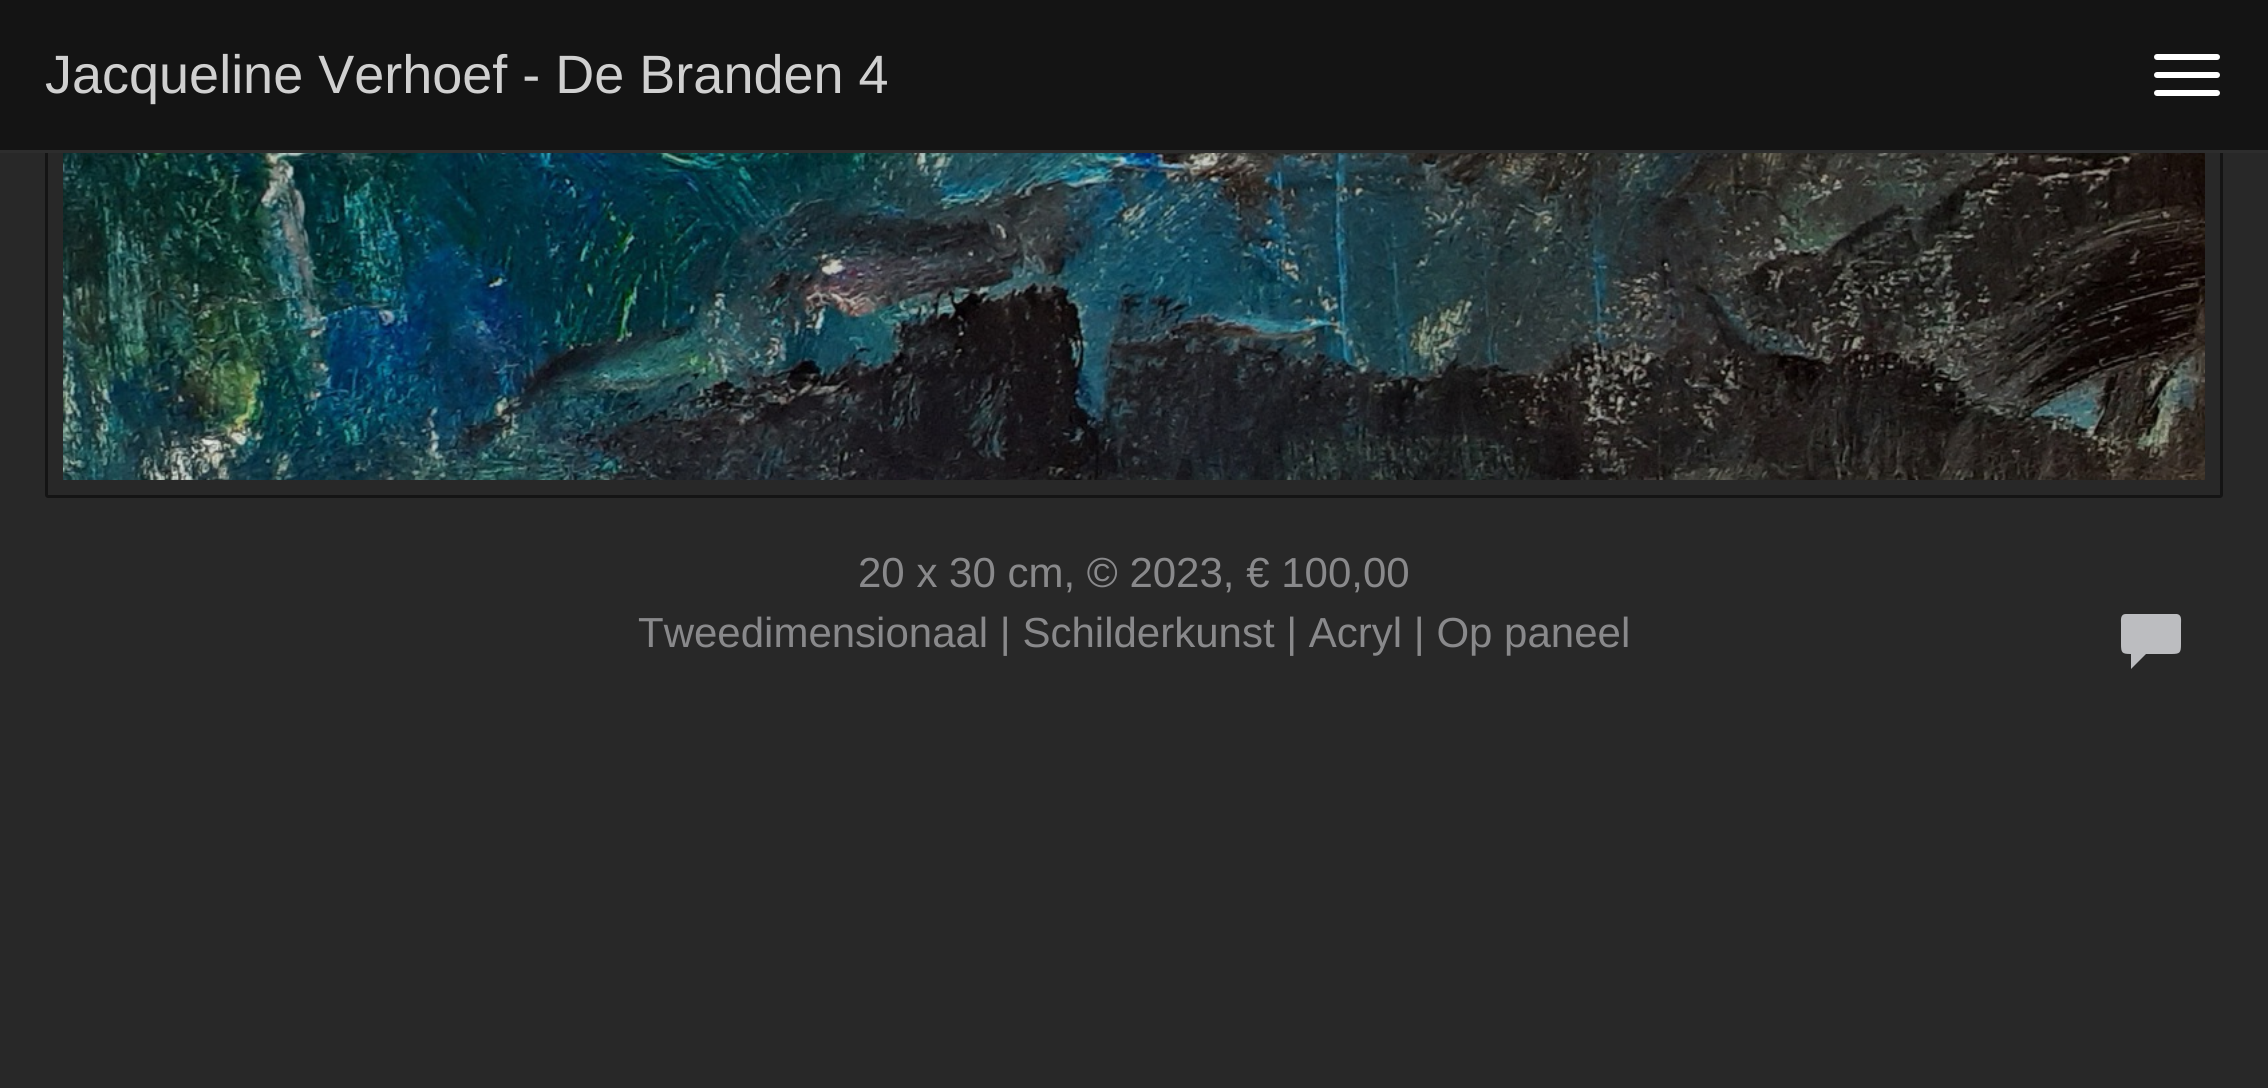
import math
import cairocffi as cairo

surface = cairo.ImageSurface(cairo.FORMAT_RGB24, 2268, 1088)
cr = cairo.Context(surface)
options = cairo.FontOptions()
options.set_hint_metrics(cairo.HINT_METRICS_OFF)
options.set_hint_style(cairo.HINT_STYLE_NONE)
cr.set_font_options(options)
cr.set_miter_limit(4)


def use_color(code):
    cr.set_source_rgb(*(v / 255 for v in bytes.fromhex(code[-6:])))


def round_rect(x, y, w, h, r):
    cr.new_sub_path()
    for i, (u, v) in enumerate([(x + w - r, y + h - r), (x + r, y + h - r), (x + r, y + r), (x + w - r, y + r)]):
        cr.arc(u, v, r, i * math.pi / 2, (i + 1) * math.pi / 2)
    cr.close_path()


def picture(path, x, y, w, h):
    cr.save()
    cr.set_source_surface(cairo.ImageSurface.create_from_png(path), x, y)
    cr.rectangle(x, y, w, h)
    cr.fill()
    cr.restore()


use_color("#282828")
cr.paint()
round_rect(46.5, -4.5, 2175, 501, 1.5)
use_color("#141414")
cr.set_line_width(3)
cr.stroke()
cr.rectangle(0, 0, 2268, 150)
cr.fill()
use_color("#2d2d2d")
cr.rectangle(0, 150, 2268, 3)
cr.fill()
cr.select_font_face("Liberation Sans")
cr.set_font_size(54)
use_color("#d0d0d0")
cr.move_to(45, 93)
cr.show_text("Jacqueline Verhoef - De Branden 4")
use_color("#ffffff")
round_rect(2154, 54, 66, 6, 3)
cr.fill()
round_rect(2154, 72, 66, 6, 3)
cr.fill()
round_rect(2154, 90, 66, 6, 3)
cr.fill()
picture("img1.png", 63, 153, 2142, 327)
cr.set_font_size(42)
use_color("#89898b")
cr.move_to(858, 587)
cr.show_text("20 x 30 cm, © 2023, € 100,00")
cr.move_to(638, 647)
cr.show_text("Tweedimensionaal | Schilderkunst | Acryl | Op paneel")
use_color("#bcbdc0")
cr.new_path()
cr.move_to(2126, 614)
cr.line_to(2177, 614)
cr.curve_to(2182, 615, 2181, 620, 2181, 624)
cr.line_to(2181, 644)
cr.curve_to(2181, 653, 2180, 654, 2171, 654)
cr.line_to(2146, 654)
cr.line_to(2131, 669)
cr.line_to(2131, 654)
cr.curve_to(2122, 654, 2121, 653, 2121, 644)
cr.line_to(2121, 624)
cr.curve_to(2121, 620, 2120, 614, 2126, 614)
cr.close_path()
cr.fill()
surface.write_to_png("result.png")
